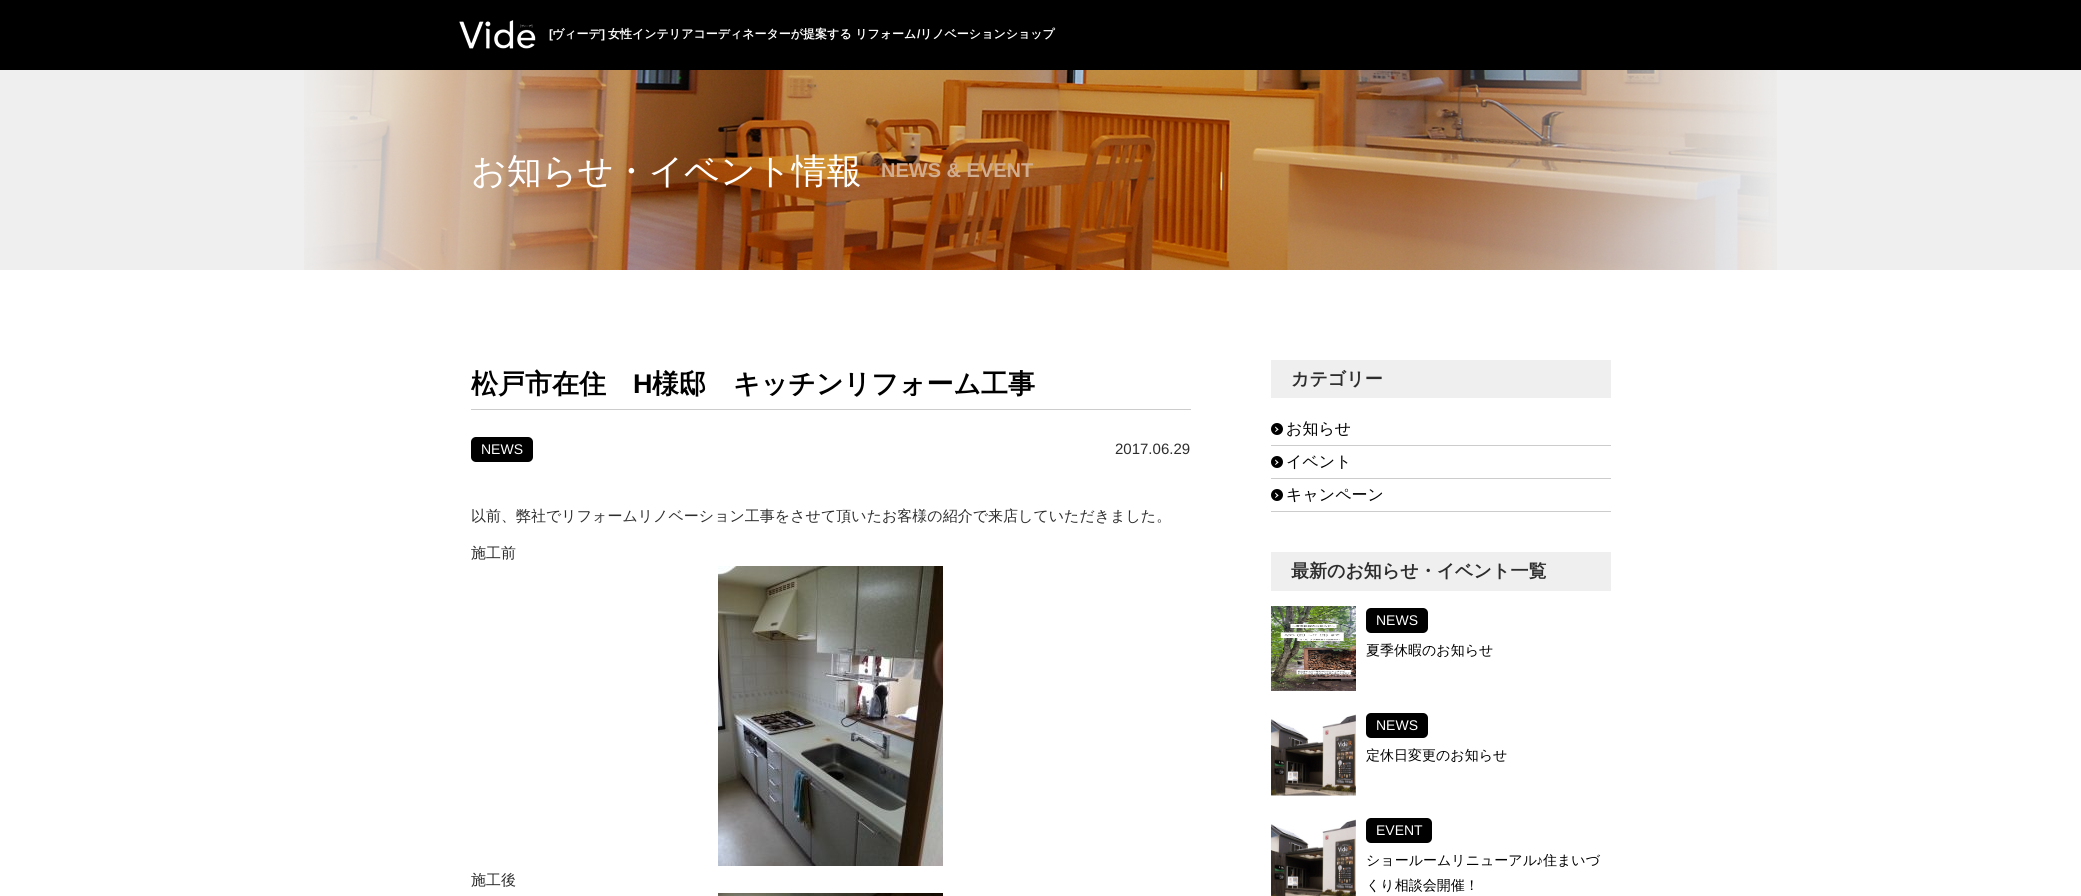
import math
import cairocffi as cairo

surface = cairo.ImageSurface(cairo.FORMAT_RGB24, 2081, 896)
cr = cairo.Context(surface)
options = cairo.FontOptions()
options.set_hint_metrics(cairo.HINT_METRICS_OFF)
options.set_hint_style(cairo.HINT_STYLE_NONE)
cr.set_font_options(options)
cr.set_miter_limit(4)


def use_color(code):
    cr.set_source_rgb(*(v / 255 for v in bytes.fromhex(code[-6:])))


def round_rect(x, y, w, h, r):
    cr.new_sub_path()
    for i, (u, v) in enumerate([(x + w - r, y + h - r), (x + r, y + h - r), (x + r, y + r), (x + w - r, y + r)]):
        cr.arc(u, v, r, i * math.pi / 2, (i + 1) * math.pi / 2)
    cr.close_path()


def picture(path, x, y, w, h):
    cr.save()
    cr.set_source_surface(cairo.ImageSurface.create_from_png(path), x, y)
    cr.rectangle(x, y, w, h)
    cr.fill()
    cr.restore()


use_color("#ffffff")
cr.paint()
use_color("#000000")
cr.rectangle(0, 0, 2081, 70)
cr.fill()
picture("img1.png", 459, 20, 77, 29)
cr.select_font_face("Liberation Sans", cairo.FONT_SLANT_NORMAL, cairo.FONT_WEIGHT_BOLD)
cr.set_font_size(12)
use_color("#ffffff")
cr.move_to(549, 38)
cr.show_text("[")
cr.select_font_face("WenQuanYi Zen Hei", cairo.FONT_SLANT_NORMAL, cairo.FONT_WEIGHT_BOLD)
cr.move_to(552, 38)
cr.show_text("ヴィーデ")
cr.select_font_face("Liberation Sans", cairo.FONT_SLANT_NORMAL, cairo.FONT_WEIGHT_BOLD)
cr.move_to(601, 38)
cr.show_text("]")
cr.select_font_face("WenQuanYi Zen Hei", cairo.FONT_SLANT_NORMAL, cairo.FONT_WEIGHT_BOLD)
cr.move_to(608, 38)
cr.show_text("女性インテリアコーディネーターが提案する リフォーム")
cr.select_font_face("Liberation Sans", cairo.FONT_SLANT_NORMAL, cairo.FONT_WEIGHT_BOLD)
cr.move_to(917, 38)
cr.show_text("/")
cr.select_font_face("WenQuanYi Zen Hei", cairo.FONT_SLANT_NORMAL, cairo.FONT_WEIGHT_BOLD)
cr.move_to(920, 38)
cr.show_text("リノベーションショップ")
use_color("#efefef")
cr.rectangle(0, 70, 2081, 200)
cr.fill()
picture("img2.png", 304, 70, 1473, 200)
cr.select_font_face("WenQuanYi Zen Hei Medium")
cr.set_font_size(35)
use_color("#ffffff")
cr.move_to(471, 183)
cr.show_text("お知らせ・イベント情報")
cr.select_font_face("Liberation Sans", cairo.FONT_SLANT_NORMAL, cairo.FONT_WEIGHT_BOLD)
cr.set_font_size(20)
use_color("#d1ac8e")
cr.move_to(881, 177)
cr.show_text("NEWS & EVENT")
use_color("#cccccc")
cr.rectangle(471, 409, 720, 1)
cr.fill()
cr.select_font_face("WenQuanYi Zen Hei", cairo.FONT_SLANT_NORMAL, cairo.FONT_WEIGHT_BOLD)
cr.set_font_size(27)
use_color("#000000")
cr.move_to(471, 393)
cr.show_text("松戸市在住")
cr.select_font_face("Liberation Sans", cairo.FONT_SLANT_NORMAL, cairo.FONT_WEIGHT_BOLD)
cr.move_to(633, 393)
cr.show_text("H")
cr.select_font_face("WenQuanYi Zen Hei", cairo.FONT_SLANT_NORMAL, cairo.FONT_WEIGHT_BOLD)
cr.move_to(652, 393)
cr.show_text("様邸　キッチンリフォーム工事")
round_rect(471, 437, 62, 25, 5)
cr.fill()
cr.select_font_face("Liberation Sans")
cr.set_font_size(14)
use_color("#ffffff")
cr.move_to(481, 454)
cr.show_text("NEWS")
cr.set_font_size(15)
use_color("#2d2d2d")
cr.move_to(1115, 454)
cr.show_text("2017.06.29")
cr.select_font_face("WenQuanYi Zen Hei Medium")
cr.move_to(471, 521)
cr.show_text("以前、弊社でリフォームリノベーション工事をさせて頂いたお客様の紹介で来店していただきました。")
cr.move_to(471, 558)
cr.show_text("施工前")
picture("img3.png", 718, 566, 225, 300)
cr.move_to(471, 885)
cr.show_text("施工後")
picture("img4.png", 718, 893, 225, 3)
use_color("#efefef")
cr.rectangle(1271, 360, 340, 38)
cr.fill()
cr.select_font_face("WenQuanYi Zen Hei", cairo.FONT_SLANT_NORMAL, cairo.FONT_WEIGHT_BOLD)
cr.set_font_size(18)
use_color("#2d2d2d")
cr.move_to(1291, 385)
cr.show_text("カテゴリー")
use_color("#cccccc")
cr.rectangle(1271, 445, 340, 1)
cr.fill()
use_color("#000000")
cr.arc(1277, 429, 6, 0, 2 * math.pi)
cr.fill()
cr.select_font_face("WenQuanYi Zen Hei Medium")
cr.set_font_size(16)
cr.move_to(1286, 434)
cr.show_text("お知らせ")
use_color("#ffffff")
cr.new_path()
cr.move_to(1275.5, 426.5)
cr.line_to(1278.5, 429.5)
cr.line_to(1277.5, 430)
cr.line_to(1275, 427.5)
cr.close_path()
cr.fill()
cr.new_path()
cr.move_to(1277.5, 428.5)
cr.line_to(1278.5, 429.5)
cr.line_to(1275.5, 432)
cr.line_to(1275, 431.5)
cr.close_path()
cr.fill()
use_color("#cccccc")
cr.rectangle(1271, 478, 340, 1)
cr.fill()
use_color("#000000")
cr.arc(1277, 462, 6, 0, 2 * math.pi)
cr.fill()
cr.move_to(1286, 467)
cr.show_text("イベント")
use_color("#ffffff")
cr.new_path()
cr.move_to(1275.5, 459.5)
cr.line_to(1278.5, 462.5)
cr.line_to(1277.5, 463)
cr.line_to(1275, 460.5)
cr.close_path()
cr.fill()
cr.new_path()
cr.move_to(1277.5, 461.5)
cr.line_to(1278.5, 462.5)
cr.line_to(1275.5, 465)
cr.line_to(1275, 464.5)
cr.close_path()
cr.fill()
use_color("#cccccc")
cr.rectangle(1271, 511, 340, 1)
cr.fill()
use_color("#000000")
cr.arc(1277, 495, 6, 0, 2 * math.pi)
cr.fill()
cr.move_to(1286, 500)
cr.show_text("キャンペーン")
use_color("#ffffff")
cr.new_path()
cr.move_to(1275.5, 492.5)
cr.line_to(1278.5, 495.5)
cr.line_to(1277.5, 496)
cr.line_to(1275, 493.5)
cr.close_path()
cr.fill()
cr.new_path()
cr.move_to(1277.5, 494.5)
cr.line_to(1278.5, 495.5)
cr.line_to(1275.5, 498)
cr.line_to(1275, 497.5)
cr.close_path()
cr.fill()
use_color("#efefef")
cr.rectangle(1271, 552, 340, 39)
cr.fill()
cr.select_font_face("WenQuanYi Zen Hei", cairo.FONT_SLANT_NORMAL, cairo.FONT_WEIGHT_BOLD)
cr.set_font_size(18)
use_color("#2d2d2d")
cr.move_to(1291, 577)
cr.show_text("最新のお知らせ・イベント一覧")
picture("img5.png", 1271, 606, 85, 85)
use_color("#000000")
round_rect(1366, 608, 62, 25, 5)
cr.fill()
cr.select_font_face("Liberation Sans")
cr.set_font_size(14)
use_color("#ffffff")
cr.move_to(1376, 625)
cr.show_text("NEWS")
cr.select_font_face("WenQuanYi Zen Hei Medium")
use_color("#000000")
cr.move_to(1366, 655)
cr.show_text("夏季休暇のお知らせ")
picture("img6.png", 1271, 714, 85, 82)
round_rect(1366, 713, 62, 25, 5)
cr.fill()
cr.select_font_face("Liberation Sans")
use_color("#ffffff")
cr.move_to(1376, 730)
cr.show_text("NEWS")
cr.select_font_face("WenQuanYi Zen Hei Medium")
use_color("#000000")
cr.move_to(1366, 760)
cr.show_text("定休日変更のお知らせ")
picture("img7.png", 1271, 819, 85, 77)
round_rect(1366, 818, 66, 25, 5)
cr.fill()
cr.select_font_face("Liberation Sans")
use_color("#ffffff")
cr.move_to(1376, 835)
cr.show_text("EVENT")
cr.select_font_face("WenQuanYi Zen Hei Medium")
use_color("#000000")
cr.move_to(1366, 865)
cr.show_text("ショールームリニューアル")
cr.select_font_face("Liberation Sans")
cr.move_to(1536, 865)
cr.show_text("♪")
cr.select_font_face("WenQuanYi Zen Hei Medium")
cr.move_to(1543, 865)
cr.show_text("住まいづ")
cr.move_to(1366, 890)
cr.show_text("くり相談会開催！")
surface.write_to_png("result.png")
